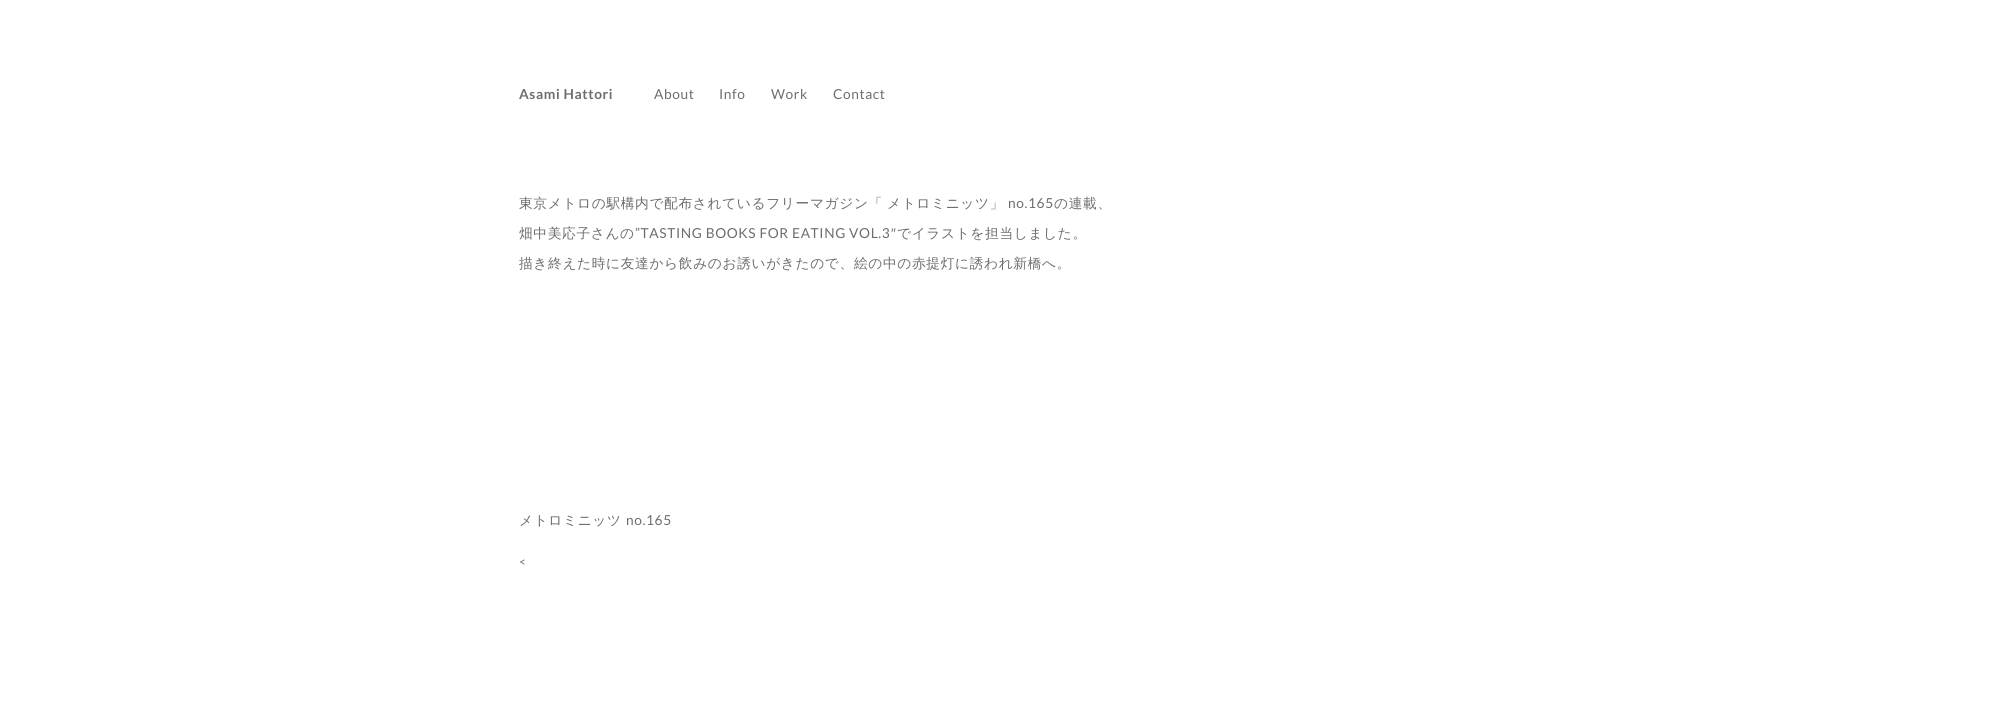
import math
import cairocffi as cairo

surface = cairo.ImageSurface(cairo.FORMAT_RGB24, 2001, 726)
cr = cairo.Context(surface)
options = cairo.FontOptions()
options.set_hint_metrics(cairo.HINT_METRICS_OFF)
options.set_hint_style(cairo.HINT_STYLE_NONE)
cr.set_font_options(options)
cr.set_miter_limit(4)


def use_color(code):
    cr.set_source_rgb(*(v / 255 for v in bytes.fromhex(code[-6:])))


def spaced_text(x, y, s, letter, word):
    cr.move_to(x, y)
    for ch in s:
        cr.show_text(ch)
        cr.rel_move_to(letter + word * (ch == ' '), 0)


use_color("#ffffff")
cr.paint()
cr.select_font_face("Lato", cairo.FONT_SLANT_NORMAL, cairo.FONT_WEIGHT_BOLD)
cr.set_font_size(13.75)
use_color("#6d6d6d")
spaced_text(519, 99, "Asami Hattori", 0.6, 0)
cr.select_font_face("Lato")
spaced_text(654, 99, "About", 0.6, 0)
spaced_text(719, 99, "Info", 0.6, 0)
spaced_text(771, 99, "Work", 0.6, 0)
spaced_text(833, 99, "Contact", 0.6, 0)
cr.select_font_face("WenQuanYi Zen Hei Medium")
spaced_text(519, 208, "東京メトロの駅構内で配布されているフリーマガジン「", 0.6, 0)
spaced_text(887, 208, "メトロミニッツ」", 0.6, 0)
cr.select_font_face("Lato")
spaced_text(1008, 208, "no.165", 0.6, 0)
cr.select_font_face("WenQuanYi Zen Hei Medium")
spaced_text(1054, 208, "の連載、", 0.6, 0)
spaced_text(519, 238, "畑中美応子さんの", 0.6, 0)
cr.select_font_face("Lato")
spaced_text(635, 238, "”TASTING BOOKS FOR EATING VOL.3", 0.6, 0)
cr.select_font_face("Liberation Sans")
spaced_text(891, 238, "″", 0.6, 0)
cr.select_font_face("WenQuanYi Zen Hei Medium")
spaced_text(897, 238, "でイラストを担当しました。", 0.6, 0)
spaced_text(519, 268, "描き終えた時に友達から飲みのお誘いがきたので、絵の中の赤提灯に誘われ新橋へ。", 0.6, 0)
spaced_text(519, 525, "メトロミニッツ", 0.6, 0)
cr.select_font_face("Lato")
spaced_text(626, 525, "no.165", 0.6, 0)
cr.set_font_size(12)
spaced_text(519, 566, "<", 0.6, 0)
surface.write_to_png("result.png")
